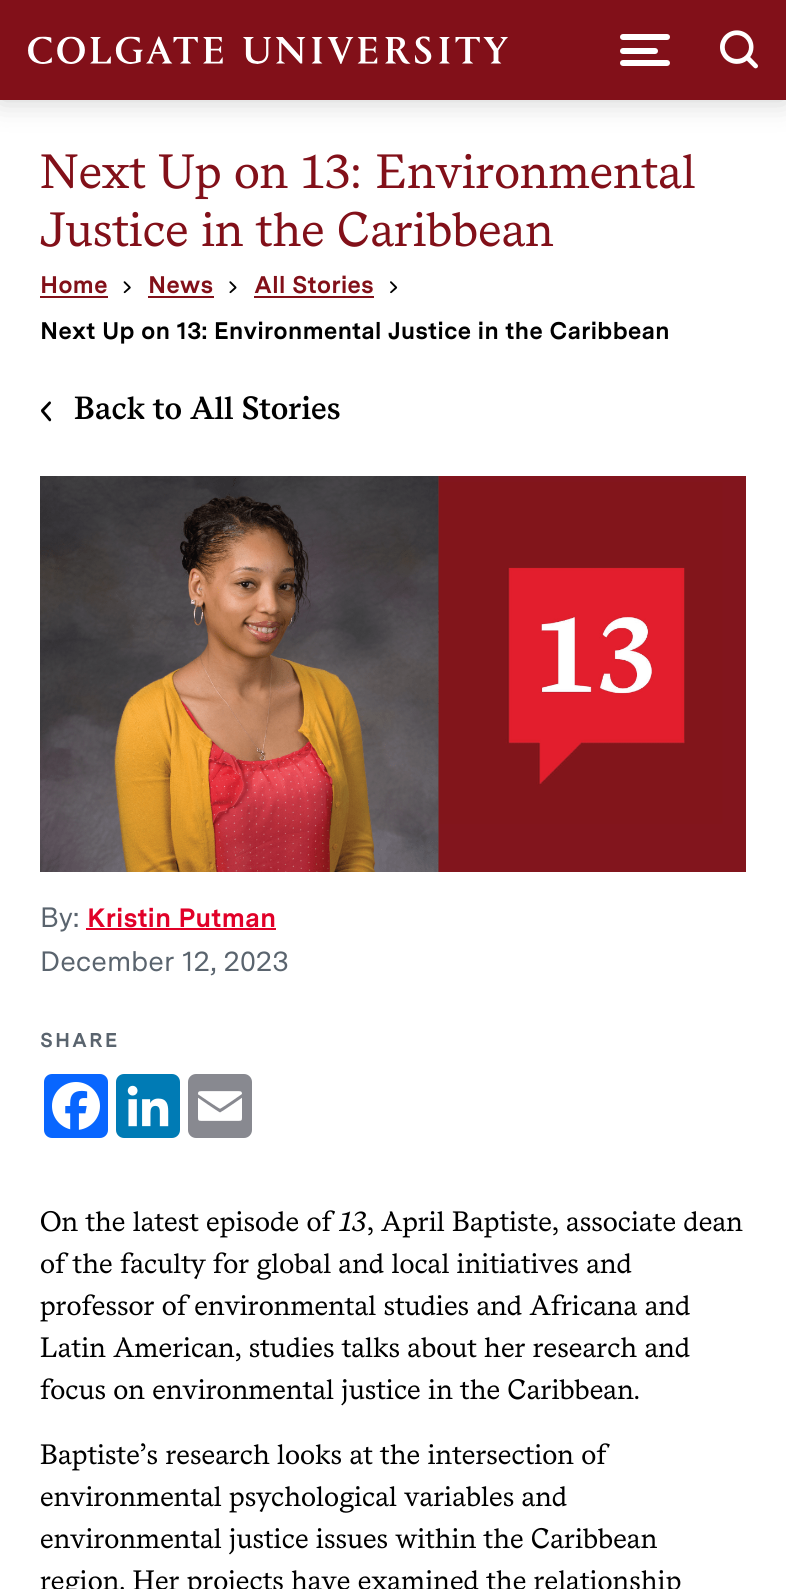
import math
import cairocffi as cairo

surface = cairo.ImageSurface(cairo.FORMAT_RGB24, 786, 1589)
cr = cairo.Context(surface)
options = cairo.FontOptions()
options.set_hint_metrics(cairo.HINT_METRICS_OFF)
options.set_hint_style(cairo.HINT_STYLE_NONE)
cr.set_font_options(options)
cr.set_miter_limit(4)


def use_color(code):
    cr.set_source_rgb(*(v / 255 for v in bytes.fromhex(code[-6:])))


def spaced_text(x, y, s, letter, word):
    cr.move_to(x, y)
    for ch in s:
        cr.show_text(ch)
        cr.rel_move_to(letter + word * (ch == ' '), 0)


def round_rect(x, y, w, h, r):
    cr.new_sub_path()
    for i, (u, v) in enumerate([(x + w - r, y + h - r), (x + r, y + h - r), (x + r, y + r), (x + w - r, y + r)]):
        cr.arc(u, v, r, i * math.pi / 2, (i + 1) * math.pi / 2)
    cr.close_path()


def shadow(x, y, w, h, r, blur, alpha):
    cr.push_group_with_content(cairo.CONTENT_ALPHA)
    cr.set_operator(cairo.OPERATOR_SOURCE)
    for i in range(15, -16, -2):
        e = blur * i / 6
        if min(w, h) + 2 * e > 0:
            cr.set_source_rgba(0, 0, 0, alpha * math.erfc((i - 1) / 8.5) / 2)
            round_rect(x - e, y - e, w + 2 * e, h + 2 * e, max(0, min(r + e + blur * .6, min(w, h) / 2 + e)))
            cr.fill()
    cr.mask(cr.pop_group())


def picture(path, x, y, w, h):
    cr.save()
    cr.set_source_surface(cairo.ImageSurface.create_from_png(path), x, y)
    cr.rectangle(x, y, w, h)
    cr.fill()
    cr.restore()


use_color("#ffffff")
cr.paint()
use_color("#000000")
shadow(0, 0, 786, 100, 0, 15, 0.2)
use_color("#821019")
cr.rectangle(0, 0, 786, 100)
cr.fill()
picture("img1.png", 28, 36, 480, 28)
use_color("#ffffff")
round_rect(620, 34, 50, 6, 3)
cr.fill()
round_rect(620, 48, 38, 6, 3)
cr.fill()
round_rect(620, 60, 50, 6, 3)
cr.fill()
picture("img2.png", 720, 30, 38, 39)
cr.select_font_face("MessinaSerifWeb")
cr.set_font_size(48)
use_color("#821019")
cr.move_to(40, 188)
cr.show_text("Next Up on 13: Environmental")
cr.move_to(40, 246)
cr.show_text("Justice in the Caribbean")
cr.select_font_face("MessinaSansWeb", cairo.FONT_SLANT_NORMAL, cairo.FONT_WEIGHT_BOLD)
cr.set_font_size(24)
cr.move_to(40, 293)
cr.show_text("Home")
cr.rectangle(40, 296, 68, 2)
cr.fill()
picture("img3.png", 123, 281, 8, 13)
cr.move_to(148, 293)
cr.show_text("News")
cr.rectangle(148, 296, 66, 2)
cr.fill()
picture("img4.png", 229, 281, 8, 13)
cr.move_to(254, 293)
cr.show_text("All Stories")
cr.rectangle(254, 296, 120, 2)
cr.fill()
picture("img5.png", 390, 281, 8, 13)
use_color("#000000")
cr.move_to(40, 339)
cr.show_text("Next Up on 13: Environmental Justice in the Caribbean")
picture("img6.png", 41, 401, 11, 21)
cr.select_font_face("MessinaSerifWeb SemiBold")
cr.set_font_size(32)
cr.move_to(74, 419)
cr.show_text("Back to All Stories")
picture("img7.png", 40, 476, 706, 396)
cr.select_font_face("MessinaSansWeb")
cr.set_font_size(28)
use_color("#5a646e")
cr.move_to(40, 927)
cr.show_text("By:")
cr.select_font_face("MessinaSansWeb", cairo.FONT_SLANT_NORMAL, cairo.FONT_WEIGHT_BOLD)
cr.set_font_size(26.5)
use_color("#e10028")
cr.move_to(87, 927)
cr.show_text("Kristin Putman")
cr.rectangle(86, 928, 190, 2)
cr.fill()
cr.select_font_face("MessinaSansWeb")
cr.set_font_size(28)
use_color("#5a646e")
cr.move_to(40, 971)
cr.show_text("December 12, 2023")
cr.select_font_face("MessinaSansWeb", cairo.FONT_SLANT_NORMAL, cairo.FONT_WEIGHT_BOLD)
cr.set_font_size(20)
spaced_text(40, 1047, "SHARE", 2, 0)
use_color("#0866ff")
round_rect(44, 1074, 64, 64, 8)
cr.fill()
picture("img8.png", 52, 1082, 48, 48)
use_color("#007bb5")
round_rect(116, 1074, 64, 64, 8)
cr.fill()
picture("img9.png", 127, 1085, 42, 42)
use_color("#888990")
round_rect(188, 1074, 64, 64, 8)
cr.fill()
picture("img10.png", 198, 1091, 44, 30)
cr.select_font_face("MessinaSerifWeb")
cr.set_font_size(28)
use_color("#000000")
cr.move_to(40, 1231)
cr.show_text("On the latest episode of")
cr.select_font_face("MessinaSerifWeb", cairo.FONT_SLANT_ITALIC)
cr.move_to(339, 1231)
cr.show_text("13")
cr.select_font_face("MessinaSerifWeb")
cr.move_to(367, 1231)
cr.show_text(", April Baptiste, associate dean")
cr.move_to(40, 1273)
cr.show_text("of the faculty for global and local initiatives and")
cr.move_to(40, 1315)
cr.show_text("professor of environmental studies and Africana and")
cr.move_to(40, 1357)
cr.show_text("Latin American, studies talks about her research and")
cr.move_to(40, 1399)
cr.show_text("focus on environmental justice in the Caribbean.")
cr.move_to(40, 1464)
cr.show_text("Baptiste’s research looks at the intersection of")
cr.move_to(40, 1506)
cr.show_text("environmental psychological variables and")
cr.move_to(40, 1548)
cr.show_text("environmental justice issues within the Caribbean")
cr.move_to(40, 1590)
cr.show_text("region. Her projects have examined the relationship")
surface.write_to_png("result.png")
